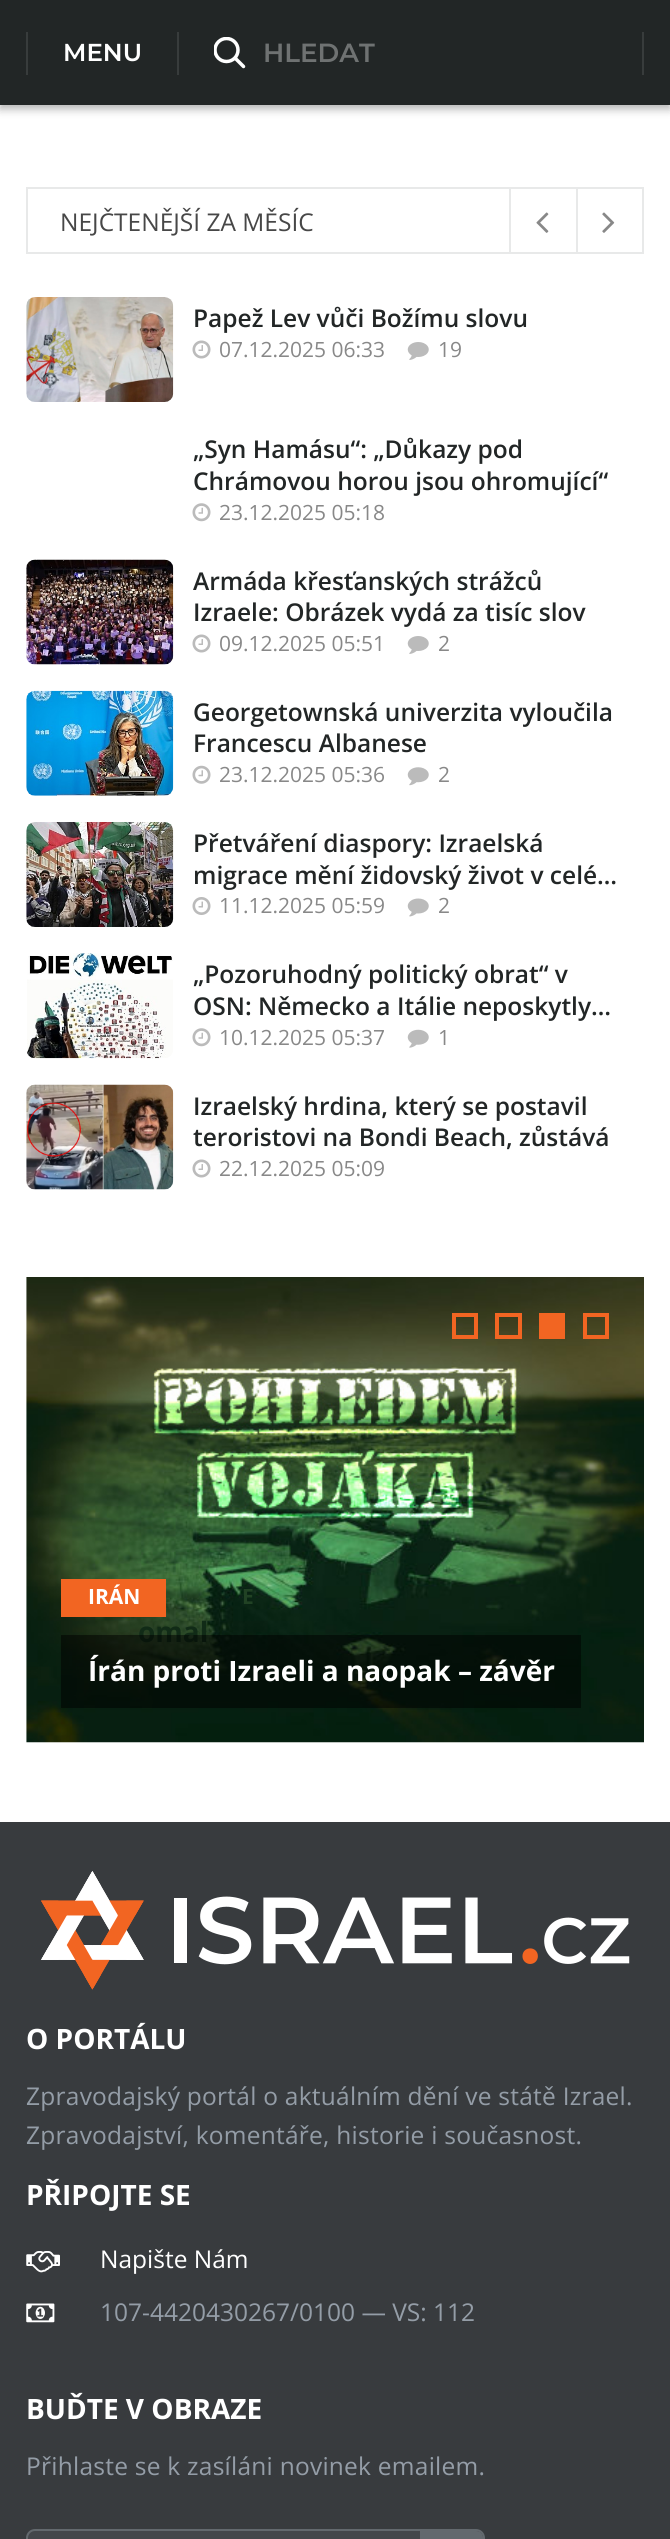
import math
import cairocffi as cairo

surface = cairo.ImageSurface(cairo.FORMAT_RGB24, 670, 2539)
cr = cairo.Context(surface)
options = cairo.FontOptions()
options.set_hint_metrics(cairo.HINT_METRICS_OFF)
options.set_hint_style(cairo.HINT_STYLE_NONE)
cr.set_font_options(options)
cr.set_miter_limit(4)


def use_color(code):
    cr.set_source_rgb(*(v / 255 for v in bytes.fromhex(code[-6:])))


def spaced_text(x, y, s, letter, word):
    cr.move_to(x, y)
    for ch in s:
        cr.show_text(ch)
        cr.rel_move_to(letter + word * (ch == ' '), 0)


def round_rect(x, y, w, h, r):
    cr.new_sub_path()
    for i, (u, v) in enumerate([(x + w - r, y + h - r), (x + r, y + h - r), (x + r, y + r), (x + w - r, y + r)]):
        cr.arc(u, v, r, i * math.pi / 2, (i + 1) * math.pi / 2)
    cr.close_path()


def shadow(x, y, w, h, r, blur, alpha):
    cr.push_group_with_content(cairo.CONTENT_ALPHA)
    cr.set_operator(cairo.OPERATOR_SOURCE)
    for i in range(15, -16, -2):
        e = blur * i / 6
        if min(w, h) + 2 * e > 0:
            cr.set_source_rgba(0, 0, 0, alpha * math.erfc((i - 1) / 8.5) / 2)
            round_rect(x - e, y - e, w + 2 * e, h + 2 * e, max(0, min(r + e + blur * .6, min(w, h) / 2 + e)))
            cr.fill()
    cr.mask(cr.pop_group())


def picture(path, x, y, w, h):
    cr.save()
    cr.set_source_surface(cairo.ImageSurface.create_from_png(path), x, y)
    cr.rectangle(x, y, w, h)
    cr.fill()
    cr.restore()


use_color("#ffffff")
cr.paint()
use_color("#000000")
shadow(0, 4, 670, 105, 0, 4.5, 0.3)
use_color("#222626")
cr.rectangle(0, 0, 670, 105)
cr.fill()
use_color("#383c3c")
cr.rectangle(26, 32, 2, 43)
cr.fill()
cr.select_font_face("Montserrat SemiBold")
cr.set_font_size(24.5)
use_color("#ffffff")
cr.move_to(63, 61)
cr.show_text("MENU")
cr.new_path()
cr.move_to(235.5, 58.5)
cr.line_to(243.5, 66.5)
cr.set_line_width(3.5)
cr.set_line_cap(cairo.LINE_CAP_ROUND)
cr.set_line_join(cairo.LINE_JOIN_ROUND)
cr.stroke()
cr.save()
cr.rectangle(214, 37, 31, 31)
cr.clip()
cr.arc(226.5, 50, 11.5, 0, 2 * math.pi)
cr.set_line_cap(cairo.LINE_CAP_BUTT)
cr.set_line_join(cairo.LINE_JOIN_MITER)
cr.stroke()
cr.restore()
use_color("#383c3c")
cr.rectangle(177, 32, 2, 43)
cr.fill()
cr.set_font_size(26.25)
use_color("#6f7272")
cr.move_to(263, 62)
cr.show_text("HLEDAT")
use_color("#383c3c")
cr.rectangle(642, 32, 2, 43)
cr.fill()
cr.rectangle(27, 188, 616, 65)
use_color("#e8e9e9")
cr.set_line_width(2)
cr.set_line_cap(cairo.LINE_CAP_BUTT)
cr.set_line_join(cairo.LINE_JOIN_MITER)
cr.stroke()
cr.select_font_face("Open Sans")
cr.set_font_size(24.5)
use_color("#474747")
cr.move_to(60, 231)
cr.show_text("NEJČTENĚJŠÍ ZA MĚSÍC")
use_color("#e8e9e9")
cr.rectangle(509, 189, 2, 63)
cr.fill()
picture("img1.png", 536, 212, 13, 21)
cr.rectangle(576, 189, 2, 63)
cr.fill()
picture("img2.png", 602, 212, 13, 21)
picture("img3.png", 26, 297, 148, 105)
cr.select_font_face("Open Sans SemiBold")
use_color("#222626")
cr.move_to(193, 327)
cr.show_text("Papež Lev vůči Božímu slovu")
picture("img4.png", 192, 340, 19, 19)
cr.select_font_face("Open Sans")
cr.set_font_size(21)
use_color("#888888")
cr.move_to(219, 357)
cr.show_text("07.12.2025 06:33")
picture("img5.png", 407, 342, 22, 18)
cr.move_to(438, 357)
cr.show_text("19")
cr.select_font_face("Open Sans SemiBold")
cr.set_font_size(24.5)
use_color("#222626")
cr.move_to(193, 458)
cr.show_text("„Syn Hamásu“: „Důkazy pod")
cr.move_to(193, 490)
cr.show_text("Chrámovou horou jsou ohromující“")
picture("img6.png", 192, 503, 19, 19)
cr.select_font_face("Open Sans")
cr.set_font_size(21)
use_color("#888888")
cr.move_to(219, 520)
cr.show_text("23.12.2025 05:18")
picture("img7.png", 26, 559, 148, 106)
cr.select_font_face("Open Sans SemiBold")
cr.set_font_size(24.5)
use_color("#222626")
cr.move_to(193, 590)
cr.show_text("Armáda křesťanských strážců")
cr.move_to(193, 621)
cr.show_text("Izraele: Obrázek vydá za tisíc slov")
picture("img4.png", 192, 634, 19, 19)
cr.select_font_face("Open Sans")
cr.set_font_size(21)
use_color("#888888")
cr.move_to(219, 651)
cr.show_text("09.12.2025 05:51")
picture("img5.png", 407, 636, 22, 18)
cr.move_to(438, 651)
cr.show_text("2")
picture("img8.png", 26, 690, 148, 106)
cr.select_font_face("Open Sans SemiBold")
cr.set_font_size(24.5)
use_color("#222626")
cr.move_to(193, 721)
cr.show_text("Georgetownská univerzita vyloučila")
cr.move_to(193, 752)
cr.show_text("Francescu Albanese")
picture("img9.png", 192, 765, 19, 19)
cr.select_font_face("Open Sans")
cr.set_font_size(21)
use_color("#888888")
cr.move_to(219, 782)
cr.show_text("23.12.2025 05:36")
picture("img10.png", 407, 767, 22, 19)
cr.move_to(438, 782)
cr.show_text("2")
picture("img11.png", 26, 822, 148, 105)
cr.select_font_face("Open Sans SemiBold")
cr.set_font_size(24.5)
use_color("#222626")
cr.move_to(193, 852)
cr.show_text("Přetváření diaspory: Izraelská")
cr.move_to(193, 884)
cr.show_text("migrace mění židovský život v celé…")
picture("img12.png", 192, 897, 19, 18)
cr.select_font_face("Open Sans")
cr.set_font_size(21)
use_color("#888888")
cr.move_to(219, 913)
cr.show_text("11.12.2025 05:59")
picture("img13.png", 407, 898, 22, 19)
cr.move_to(438, 913)
cr.show_text("2")
picture("img14.png", 27, 953, 146, 106)
cr.select_font_face("Open Sans SemiBold")
cr.set_font_size(24.5)
use_color("#222626")
cr.move_to(193, 983)
cr.show_text("„Pozoruhodný politický obrat“ v")
cr.move_to(193, 1015)
cr.show_text("OSN: Německo a Itálie neposkytly…")
picture("img6.png", 192, 1028, 19, 19)
cr.select_font_face("Open Sans")
cr.set_font_size(21)
use_color("#888888")
cr.move_to(219, 1045)
cr.show_text("10.12.2025 05:37")
picture("img15.png", 407, 1029, 22, 19)
cr.move_to(438, 1045)
cr.show_text("1")
picture("img16.png", 26, 1084, 148, 106)
cr.select_font_face("Open Sans SemiBold")
cr.set_font_size(24.5)
use_color("#222626")
cr.move_to(193, 1115)
cr.show_text("Izraelský hrdina, který se postavil")
cr.move_to(193, 1146)
cr.show_text("teroristovi na Bondi Beach, zůstává")
picture("img4.png", 192, 1159, 19, 19)
cr.select_font_face("Open Sans")
cr.set_font_size(21)
use_color("#888888")
cr.move_to(219, 1176)
cr.show_text("22.12.2025 05:09")
picture("img17.png", 26, 1277, 618, 466)
cr.rectangle(454, 1315, 22, 22)
use_color("#f26522")
cr.set_line_width(4)
cr.stroke()
cr.rectangle(497, 1315, 23, 22)
cr.stroke()
cr.rectangle(539, 1313, 26, 26)
cr.fill()
cr.rectangle(585, 1315, 22, 22)
cr.stroke()
cr.rectangle(61, 1579, 105, 38)
cr.fill()
cr.select_font_face("Open Sans", cairo.FONT_SLANT_NORMAL, cairo.FONT_WEIGHT_BOLD)
use_color("#ffffff")
cr.move_to(88, 1604)
cr.show_text("IRÁN")
cr.set_font_size(28)
use_color("#112b17")
cr.move_to(138, 1642)
cr.show_text("omal")
cr.set_source_rgba(0, 0, 0, 0.5)
cr.rectangle(61, 1635, 520, 73)
cr.fill()
use_color("#ffffff")
cr.move_to(88, 1681)
cr.show_text("Írán proti Izraeli a naopak – závěr")
cr.set_font_size(21)
use_color("#214224")
cr.move_to(242, 1604)
cr.show_text("E")
use_color("#383b3e")
cr.rectangle(0, 1822, 670, 717)
cr.fill()
picture("img18.png", 41, 1871, 589, 119)
cr.set_font_size(28)
use_color("#ffffff")
cr.move_to(26, 2049)
cr.show_text("O PORTÁLU")
cr.select_font_face("Open Sans")
cr.set_font_size(24.5)
use_color("#949da7")
spaced_text(26, 2105, "Zpravodajský portál o aktuálním dění ve státě Izrael.", 0.25, 0)
spaced_text(26, 2144, "Zpravodajství, komentáře, historie i současnost.", 0.25, 0)
cr.select_font_face("Open Sans", cairo.FONT_SLANT_NORMAL, cairo.FONT_WEIGHT_BOLD)
cr.set_font_size(28)
use_color("#ffffff")
cr.move_to(26, 2205)
cr.show_text("PŘIPOJTE SE")
picture("img19.png", 26, 2251, 34, 22)
cr.select_font_face("Open Sans")
cr.set_font_size(24.5)
cr.move_to(100, 2268)
cr.show_text("Napište Nám")
picture("img20.png", 26, 2303, 29, 20)
use_color("#949da7")
cr.move_to(100, 2321)
cr.show_text("107-4420430267/0100 — VS: 112")
cr.select_font_face("Open Sans", cairo.FONT_SLANT_NORMAL, cairo.FONT_WEIGHT_BOLD)
cr.set_font_size(28)
use_color("#ffffff")
cr.move_to(26, 2419)
cr.show_text("BUĎTE V OBRAZE")
cr.select_font_face("Open Sans")
cr.set_font_size(24.5)
use_color("#949da7")
spaced_text(26, 2475, "Přihlaste se k zasíláni novinek emailem.", 0.25, 0)
use_color("#44474b")
round_rect(27, 2530, 457, 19, 8)
cr.fill_preserve()
use_color("#63696e")
cr.set_line_width(2)
cr.stroke()
cr.new_path()
cr.move_to(420, 2531)
cr.line_to(476, 2531)
cr.curve_to(480, 2531, 483, 2534, 483, 2538)
cr.line_to(483, 2539)
cr.curve_to(483, 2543, 480, 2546, 476, 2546)
cr.line_to(420, 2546)
cr.close_path()
cr.fill()
surface.write_to_png("result.png")
